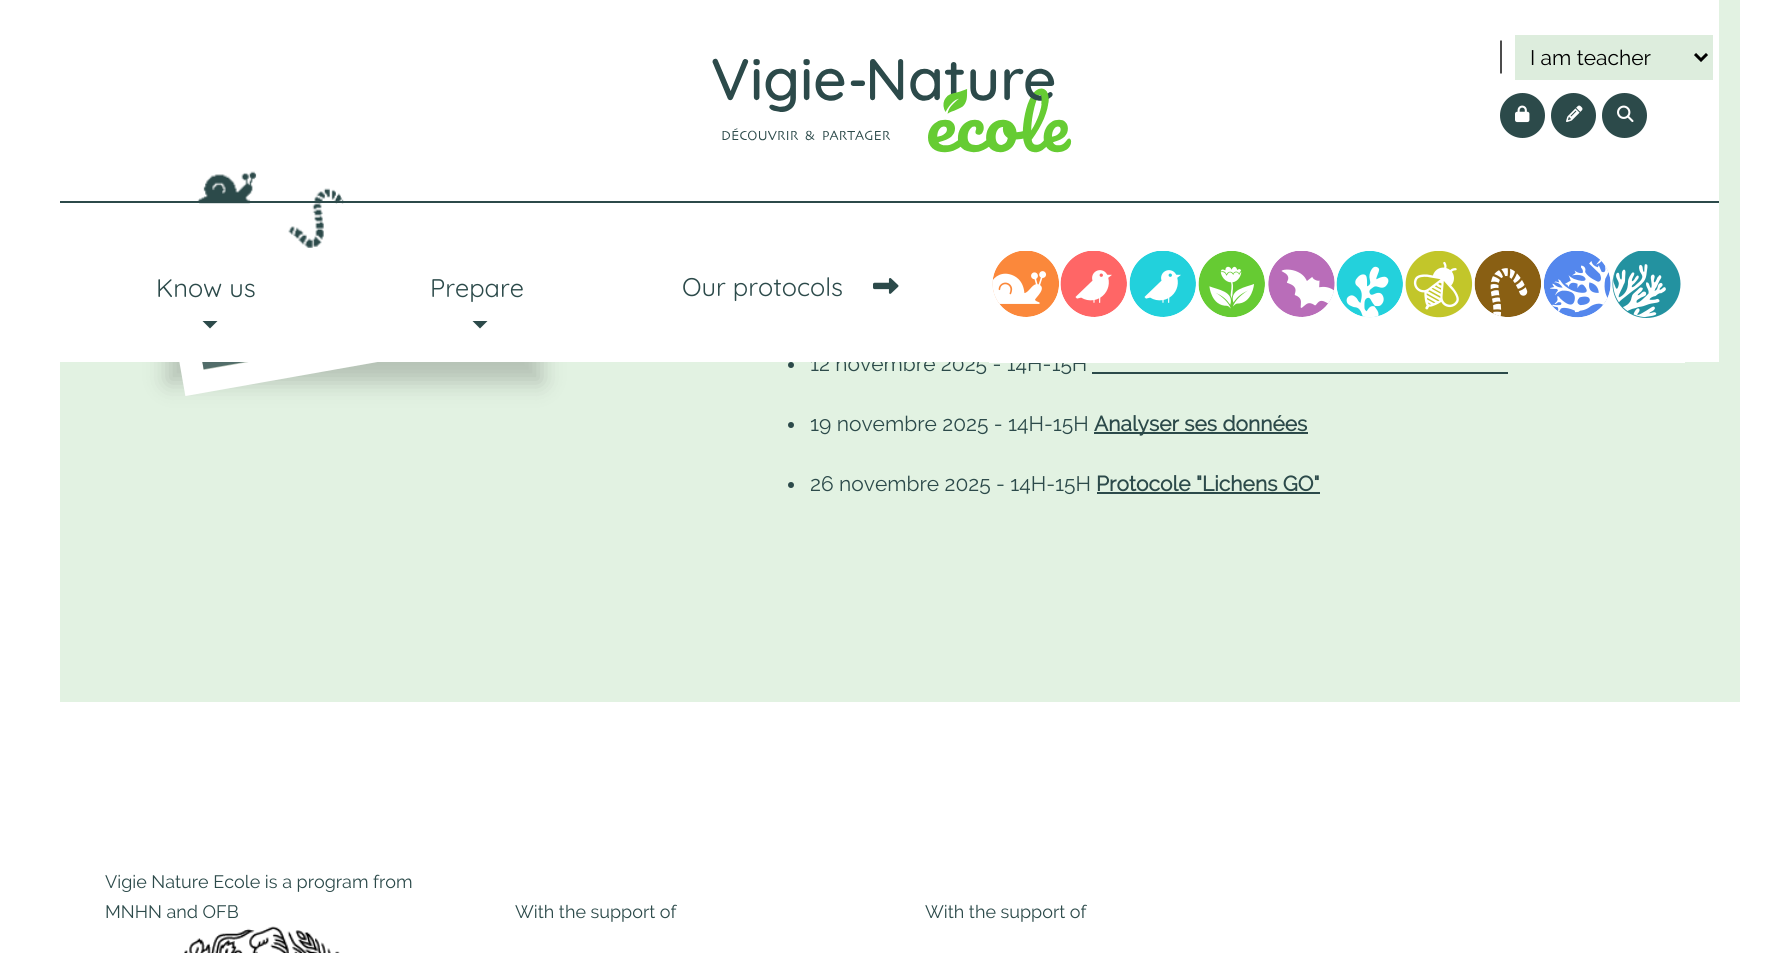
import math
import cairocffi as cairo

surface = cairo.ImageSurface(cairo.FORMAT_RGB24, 1778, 953)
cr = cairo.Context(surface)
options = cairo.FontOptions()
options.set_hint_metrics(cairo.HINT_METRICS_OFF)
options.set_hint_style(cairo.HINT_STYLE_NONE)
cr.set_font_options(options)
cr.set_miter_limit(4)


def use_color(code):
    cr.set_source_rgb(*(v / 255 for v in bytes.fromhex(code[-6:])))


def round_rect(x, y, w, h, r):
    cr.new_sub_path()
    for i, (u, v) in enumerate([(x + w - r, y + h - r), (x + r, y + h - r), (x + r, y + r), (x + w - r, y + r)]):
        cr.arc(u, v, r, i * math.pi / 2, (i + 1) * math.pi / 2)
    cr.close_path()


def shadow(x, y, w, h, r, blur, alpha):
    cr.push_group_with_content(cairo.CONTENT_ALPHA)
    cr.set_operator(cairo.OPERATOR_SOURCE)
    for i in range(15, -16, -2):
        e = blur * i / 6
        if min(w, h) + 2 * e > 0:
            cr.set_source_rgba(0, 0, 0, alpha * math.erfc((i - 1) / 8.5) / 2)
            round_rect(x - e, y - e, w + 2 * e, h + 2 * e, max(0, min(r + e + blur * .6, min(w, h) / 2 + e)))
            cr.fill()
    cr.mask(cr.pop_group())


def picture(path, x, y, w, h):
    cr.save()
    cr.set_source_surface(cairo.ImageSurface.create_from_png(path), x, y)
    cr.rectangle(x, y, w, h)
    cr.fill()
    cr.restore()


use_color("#ffffff")
cr.paint()
use_color("#e2f2e2")
cr.rectangle(60, 0, 1680, 702)
cr.fill()
use_color("#000000")
shadow(167, 8, 375, 375, 0, 11.5, 0.2)
cr.new_path()
cr.move_to(133.5, 36)
cr.line_to(480.5, -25.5)
cr.line_to(541.5, 321.5)
cr.line_to(194.5, 383)
cr.close_path()
use_color("#ffffff")
cr.set_line_width(22.5)
cr.stroke()
cr.select_font_face("Raleway")
cr.set_font_size(21)
use_color("#2c4a4a")
cr.move_to(810, 371)
cr.show_text("12 novembre 2025 - 14H-15H")
use_color("#ffffff")
cr.rectangle(60, 0, 1659, 362)
cr.fill()
use_color("#ddeddd")
cr.rectangle(1515, 35, 198, 45)
cr.fill()
cr.new_path()
cr.move_to(1501, 40.5)
cr.line_to(1501, 73.5)
use_color("#000000")
cr.set_line_width(1.4)
cr.stroke()
cr.new_path()
cr.move_to(1695, 54)
cr.line_to(1701, 60)
cr.line_to(1707, 54)
cr.set_line_width(3)
cr.stroke()
cr.move_to(1530, 65)
cr.show_text("I am teacher")
use_color("#2c4a4a")
cr.new_path()
cr.arc(1522.5, 115.5, 22.5, 0, 2 * math.pi)
cr.fill()
picture("img1.png", 1515, 105, 15, 18)
cr.arc(1573.5, 115.5, 22.5, 0, 2 * math.pi)
cr.fill()
picture("img2.png", 1566, 105, 17, 17)
cr.arc(1624.5, 115.5, 22.5, 0, 2 * math.pi)
cr.fill()
picture("img3.png", 1617, 105, 17, 17)
cr.rectangle(60, 201, 1659, 2)
cr.fill()
picture("img4.png", 712, 58, 360, 95)
picture("img5.png", 197, 171, 147, 77)
cr.select_font_face("Quicksand")
cr.set_font_size(25.5)
cr.move_to(156, 297)
cr.show_text("Know us")
cr.new_path()
cr.move_to(202.5, 321)
cr.line_to(217.5, 321)
cr.line_to(210, 328.5)
cr.close_path()
cr.fill()
cr.move_to(430, 297)
cr.show_text("Prepare")
cr.new_path()
cr.move_to(472.5, 321)
cr.line_to(487.5, 321)
cr.line_to(480, 328.5)
cr.close_path()
cr.fill()
cr.move_to(682, 296)
cr.show_text("Our protocols")
picture("img6.png", 873, 278, 26, 16)
picture("img7.png", 992, 251, 67, 66)
use_color("#ffffff")
cr.rectangle(989, 362, 696, 1)
cr.fill()
picture("img8.png", 1060, 251, 67, 66)
picture("img9.png", 1129, 251, 67, 66)
picture("img10.png", 1198, 251, 67, 67)
picture("img11.png", 1268, 251, 67, 66)
picture("img12.png", 1336, 251, 67, 67)
picture("img13.png", 1405, 251, 68, 67)
picture("img14.png", 1474, 251, 67, 66)
picture("img15.png", 1543, 251, 68, 67)
picture("img16.png", 1612, 251, 69, 67)
picture("img17.png", 202, 362, 43, 8)
use_color("#2c4a4a")
cr.arc(791, 365, 3, 0, 2 * math.pi)
cr.fill()
cr.rectangle(1092, 372, 416, 2)
cr.fill()
cr.arc(791, 425, 3, 0, 2 * math.pi)
cr.fill()
cr.select_font_face("Raleway")
cr.set_font_size(21)
cr.move_to(810, 431)
cr.show_text("19 novembre 2025 - 14H-15H")
cr.rectangle(1094, 432, 214, 2)
cr.fill()
cr.select_font_face("Raleway", cairo.FONT_SLANT_NORMAL, cairo.FONT_WEIGHT_BOLD)
cr.move_to(1094, 431)
cr.show_text("Analyser ses données")
cr.new_path()
cr.arc(791, 485, 3, 0, 2 * math.pi)
cr.fill()
cr.select_font_face("Raleway")
cr.move_to(810, 491)
cr.show_text("26 novembre 2025 - 14H-15H")
cr.select_font_face("Raleway", cairo.FONT_SLANT_NORMAL, cairo.FONT_WEIGHT_BOLD)
cr.move_to(1096, 491)
cr.show_text("Protocole \"Lichens GO\"")
cr.rectangle(1097, 492, 223, 2)
cr.fill()
cr.select_font_face("Raleway")
cr.set_font_size(18)
cr.move_to(105, 888)
cr.show_text("Vigie Nature Ecole is a program from")
cr.move_to(105, 918)
cr.show_text("MNHN and OFB")
picture("img18.png", 184, 926, 156, 27)
cr.move_to(515, 918)
cr.show_text("With the support of")
cr.move_to(925, 918)
cr.show_text("With the support of")
surface.write_to_png("result.png")
